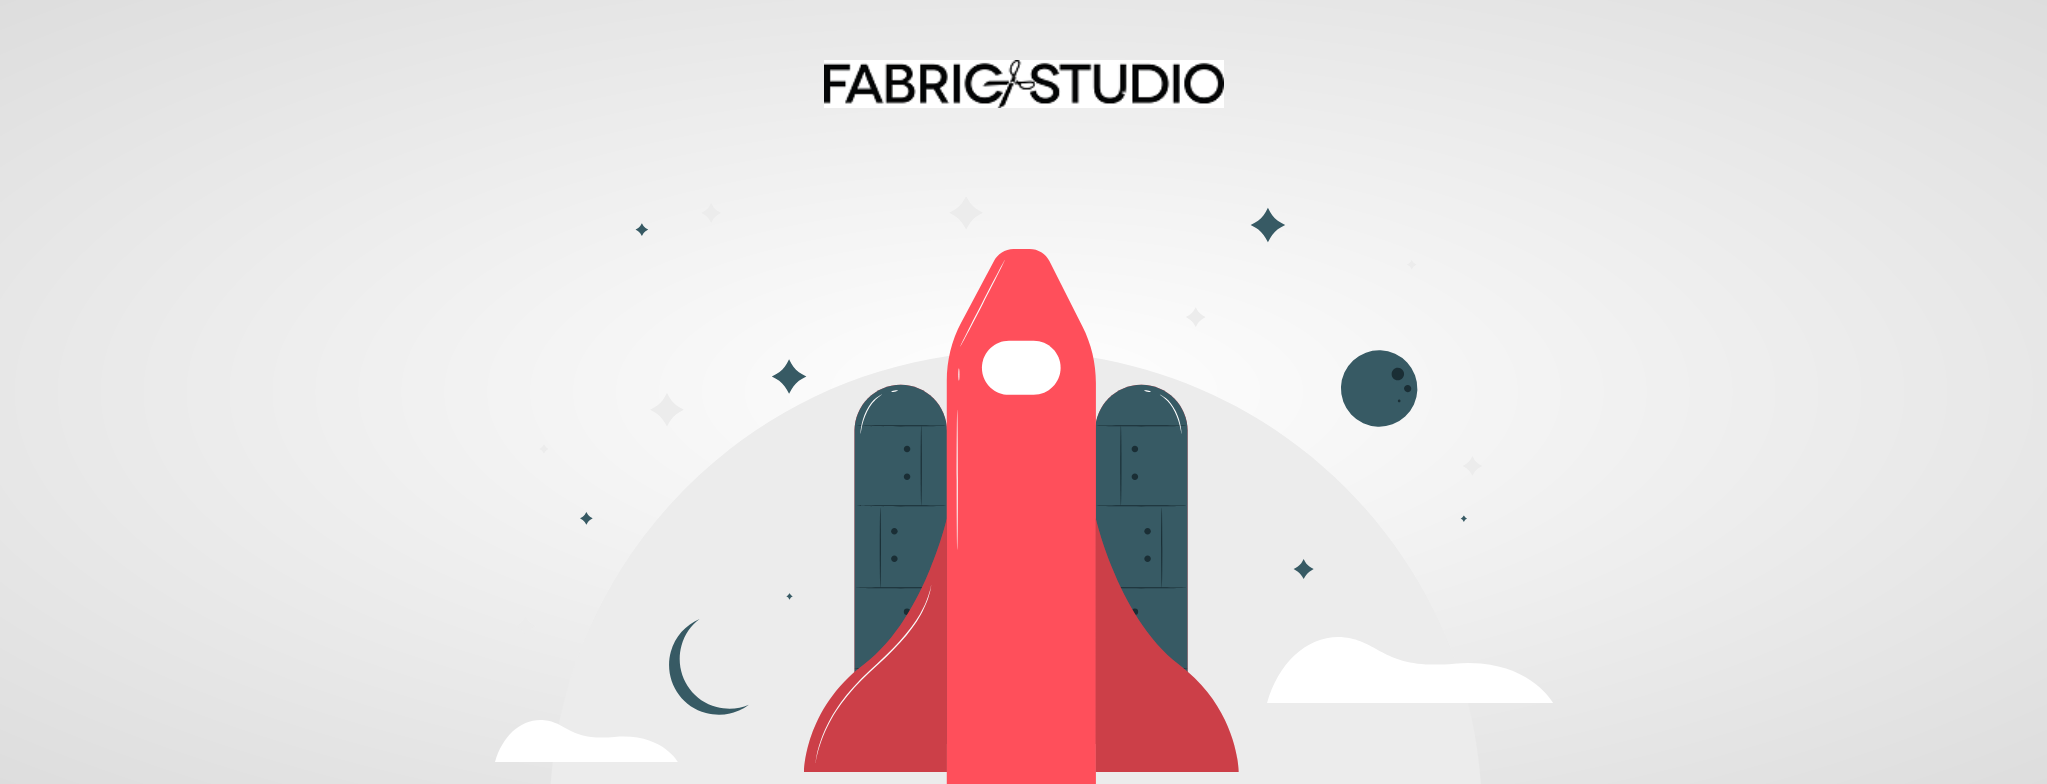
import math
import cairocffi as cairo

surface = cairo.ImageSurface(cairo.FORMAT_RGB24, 2047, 784)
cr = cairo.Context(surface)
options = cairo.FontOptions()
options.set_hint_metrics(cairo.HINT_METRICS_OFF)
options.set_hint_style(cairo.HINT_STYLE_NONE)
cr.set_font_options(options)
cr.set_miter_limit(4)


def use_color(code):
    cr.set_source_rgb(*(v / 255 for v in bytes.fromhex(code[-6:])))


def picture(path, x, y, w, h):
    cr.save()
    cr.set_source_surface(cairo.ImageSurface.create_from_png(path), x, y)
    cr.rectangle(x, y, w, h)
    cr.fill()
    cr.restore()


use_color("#ffffff")
cr.paint()
gradient = cairo.RadialGradient(0, 0, 0, 0, 0, 1)
gradient.set_matrix(cairo.Matrix(1 / 1448, 0, 0, 1 / 554, -1 * 1024 / 1448, -1 * 392 / 554))
gradient.add_color_stop_rgba(0, 1, 1, 1, 1)
gradient.add_color_stop_rgba(1, 0.867, 0.867, 0.867, 1)
cr.set_source(gradient)
cr.rectangle(0, 0, 2047, 784)
cr.fill()
picture("img1.png", 824, 60, 400, 48)
picture("img2.png", 495, 197, 1058, 587)
surface.write_to_png("result.png")
